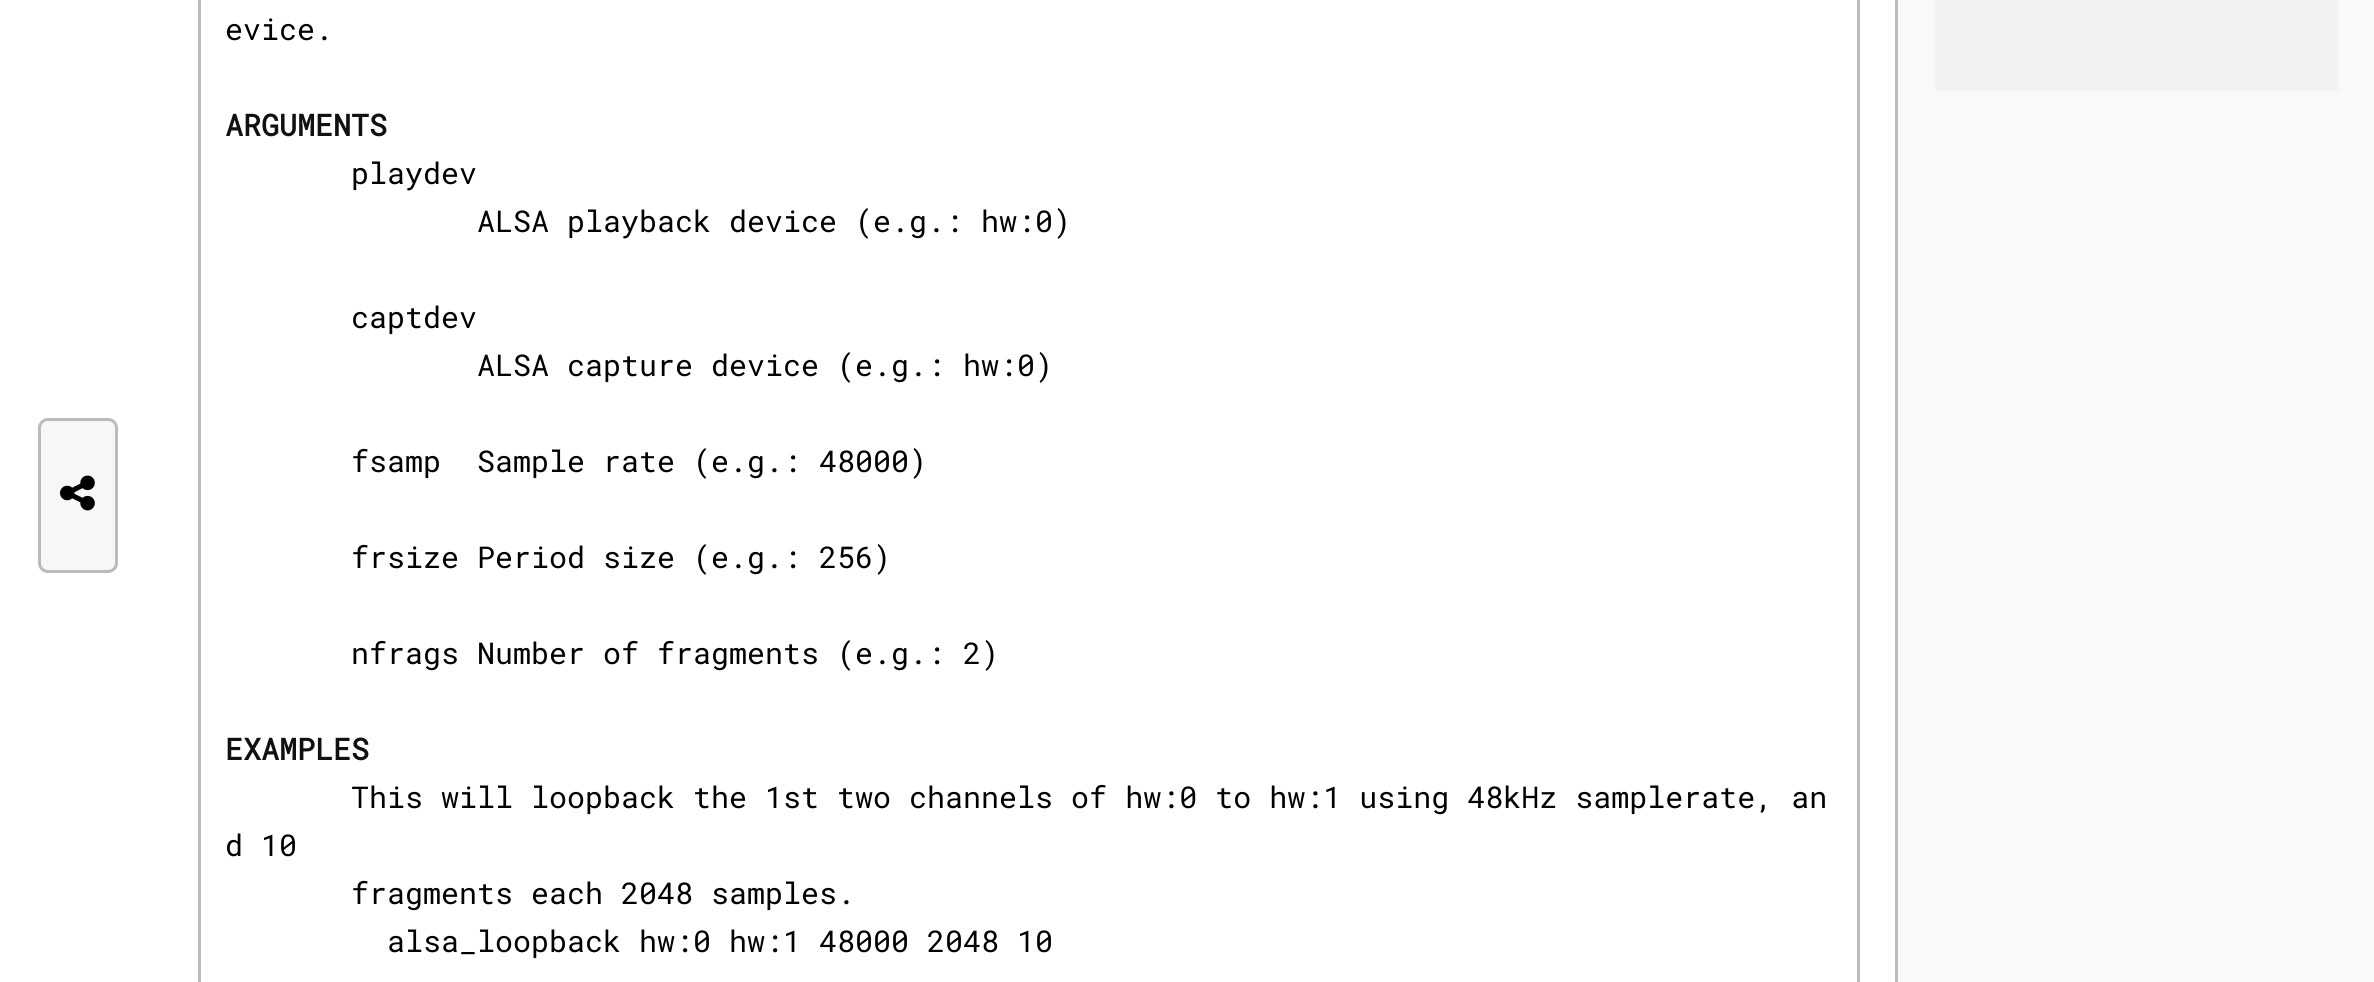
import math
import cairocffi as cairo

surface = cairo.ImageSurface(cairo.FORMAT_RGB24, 2374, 982)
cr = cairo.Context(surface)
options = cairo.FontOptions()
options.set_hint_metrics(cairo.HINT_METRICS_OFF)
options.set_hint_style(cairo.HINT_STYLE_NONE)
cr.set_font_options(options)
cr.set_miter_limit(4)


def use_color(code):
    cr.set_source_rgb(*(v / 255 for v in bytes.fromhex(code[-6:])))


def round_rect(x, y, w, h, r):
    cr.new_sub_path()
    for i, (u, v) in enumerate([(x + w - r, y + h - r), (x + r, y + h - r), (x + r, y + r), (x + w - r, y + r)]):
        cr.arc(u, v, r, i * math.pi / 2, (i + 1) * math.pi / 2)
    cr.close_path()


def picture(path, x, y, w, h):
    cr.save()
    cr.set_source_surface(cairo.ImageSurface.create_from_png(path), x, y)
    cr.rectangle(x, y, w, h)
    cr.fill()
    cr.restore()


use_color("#f9f9f9")
cr.paint()
use_color("#ffffff")
cr.rectangle(0, 0, 1895, 982)
cr.fill()
use_color("#bbbbbb")
cr.rectangle(1895, 0, 3, 982)
cr.fill()
use_color("#f1f1f1")
cr.rectangle(1935, 0, 403, 90)
cr.fill()
use_color("#f7f7f7")
round_rect(39.5, 419.5, 77, 152, 8.5)
cr.fill_preserve()
use_color("#bbbbbb")
cr.set_line_width(3)
cr.stroke()
picture("img1.png", 60, 475, 35, 36)
cr.rectangle(199.5, -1.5, 1659, 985)
cr.stroke()
cr.select_font_face("Roboto Mono")
cr.set_font_size(30)
use_color("#000000")
cr.move_to(225, 40)
cr.show_text("evice.")
cr.select_font_face("Roboto Mono", cairo.FONT_SLANT_NORMAL, cairo.FONT_WEIGHT_BOLD)
use_color("#111111")
cr.move_to(225, 136)
cr.show_text("ARGUMENTS")
cr.select_font_face("Roboto Mono")
use_color("#000000")
cr.move_to(351, 184)
cr.show_text("playdev")
cr.move_to(477, 232)
cr.show_text("ALSA playback device (e.g.: hw:0)")
cr.move_to(351, 328)
cr.show_text("captdev")
cr.move_to(477, 376)
cr.show_text("ALSA capture device (e.g.: hw:0)")
cr.move_to(351, 472)
cr.show_text("fsamp  Sample rate (e.g.: 48000)")
cr.move_to(351, 568)
cr.show_text("frsize Period size (e.g.: 256)")
cr.move_to(351, 664)
cr.show_text("nfrags Number of fragments (e.g.: 2)")
cr.select_font_face("Roboto Mono", cairo.FONT_SLANT_NORMAL, cairo.FONT_WEIGHT_BOLD)
use_color("#111111")
cr.move_to(225, 760)
cr.show_text("EXAMPLES")
cr.select_font_face("Roboto Mono")
use_color("#000000")
cr.move_to(351, 808)
cr.show_text("This will loopback the 1st two channels of hw:0 to hw:1 using 48kHz samplerate, an")
cr.move_to(225, 856)
cr.show_text("d 10")
cr.move_to(351, 904)
cr.show_text("fragments each 2048 samples.")
cr.move_to(387, 952)
cr.show_text("alsa_loopback hw:0 hw:1 48000 2048 10")
surface.write_to_png("result.png")
